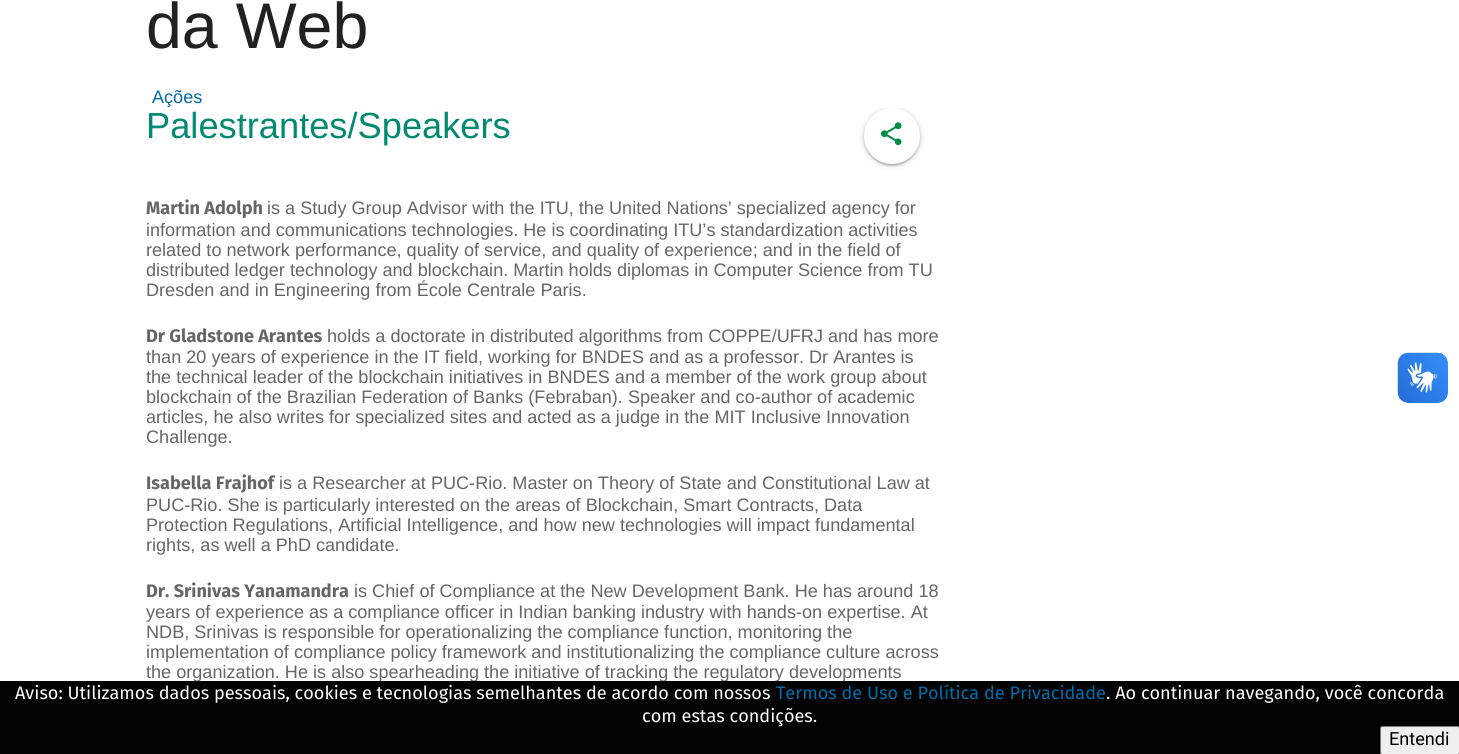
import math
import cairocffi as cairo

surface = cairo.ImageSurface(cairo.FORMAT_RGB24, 1459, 754)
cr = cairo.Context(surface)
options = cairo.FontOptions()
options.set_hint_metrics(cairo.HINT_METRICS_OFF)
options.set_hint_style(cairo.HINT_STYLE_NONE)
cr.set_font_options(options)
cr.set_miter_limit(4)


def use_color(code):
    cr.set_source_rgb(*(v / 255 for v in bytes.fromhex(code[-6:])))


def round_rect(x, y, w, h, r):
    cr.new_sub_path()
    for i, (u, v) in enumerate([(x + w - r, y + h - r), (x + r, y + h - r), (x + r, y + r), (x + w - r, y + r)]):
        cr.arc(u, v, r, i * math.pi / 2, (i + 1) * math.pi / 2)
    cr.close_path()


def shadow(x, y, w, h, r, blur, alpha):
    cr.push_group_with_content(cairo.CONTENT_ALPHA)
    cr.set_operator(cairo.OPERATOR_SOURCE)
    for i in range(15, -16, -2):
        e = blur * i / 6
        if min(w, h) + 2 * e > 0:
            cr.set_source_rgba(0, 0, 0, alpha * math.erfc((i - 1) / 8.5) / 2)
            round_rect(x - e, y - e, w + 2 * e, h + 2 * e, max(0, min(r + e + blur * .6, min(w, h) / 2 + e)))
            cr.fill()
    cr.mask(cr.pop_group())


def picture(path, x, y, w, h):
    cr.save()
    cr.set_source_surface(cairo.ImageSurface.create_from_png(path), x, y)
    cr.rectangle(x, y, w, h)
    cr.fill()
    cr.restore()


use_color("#ffffff")
cr.paint()
cr.select_font_face("Liberation Sans")
cr.set_font_size(64.5)
use_color("#212121")
cr.move_to(146, 48)
cr.show_text("da Web")
cr.set_font_size(18.1)
use_color("#006daa")
cr.move_to(152, 103)
cr.show_text("Ações")
cr.set_font_size(36.25)
use_color("#008a71")
cr.move_to(146, 138)
cr.show_text("Palestrantes/Speakers")
cr.save()
cr.rectangle(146, 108, 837, 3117)
cr.clip()
use_color("#000000")
shadow(864, 109, 56, 56, 28, 3, 0.2)
cr.restore()
use_color("#000000")
shadow(866, 114, 52, 51, 25.5, 0.5, 0.12)
shadow(864, 110, 56, 56, 28, 1, 0.14)
use_color("#ffffff")
cr.arc(892, 136, 28, 0, 2 * math.pi)
cr.fill()
picture("img1.png", 881, 122, 21, 24)
cr.select_font_face("Fira Sans", cairo.FONT_SLANT_NORMAL, cairo.FONT_WEIGHT_BOLD)
cr.set_font_size(18.1)
use_color("#666666")
cr.move_to(146, 214)
cr.show_text("Martin Adolph")
cr.select_font_face("Liberation Sans")
cr.move_to(267, 214)
cr.show_text("is a Study Group Advisor with the ITU, the United Nations’ specialized agency for")
cr.move_to(146, 236)
cr.show_text("information and communications technologies. He is coordinating ITU’s standardization activities")
cr.move_to(146, 256)
cr.show_text("related to network performance, quality of service, and quality of experience; and in the field of")
cr.move_to(146, 276)
cr.show_text("distributed ledger technology and blockchain. Martin holds diplomas in Computer Science from TU")
cr.move_to(146, 296)
cr.show_text("Dresden and in Engineering from École Centrale Paris.")
cr.select_font_face("Fira Sans", cairo.FONT_SLANT_NORMAL, cairo.FONT_WEIGHT_BOLD)
cr.move_to(146, 342)
cr.show_text("Dr Gladstone Arantes")
cr.select_font_face("Liberation Sans")
cr.move_to(327, 342)
cr.show_text("holds a doctorate in distributed algorithms from COPPE/UFRJ and has more")
cr.move_to(146, 363)
cr.show_text("than 20 years of experience in the IT field, working for BNDES and as a professor. Dr Arantes is")
cr.move_to(146, 383)
cr.show_text("the technical leader of the blockchain initiatives in BNDES and a member of the work group about")
cr.move_to(146, 403)
cr.show_text("blockchain of the Brazilian Federation of Banks (Febraban). Speaker and co-author of academic")
cr.move_to(146, 423)
cr.show_text("articles, he also writes for specialized sites and acted as a judge in the MIT Inclusive Innovation")
cr.move_to(146, 443)
cr.show_text("Challenge.")
cr.select_font_face("Fira Sans", cairo.FONT_SLANT_NORMAL, cairo.FONT_WEIGHT_BOLD)
cr.move_to(146, 489)
cr.show_text("Isabella Frajhof")
cr.select_font_face("Liberation Sans")
cr.move_to(279, 489)
cr.show_text("is a Researcher at PUC-Rio. Master on Theory of State and Constitutional Law at")
cr.move_to(146, 511)
cr.show_text("PUC-Rio. She is particularly interested on the areas of Blockchain, Smart Contracts, Data")
cr.move_to(146, 531)
cr.show_text("Protection Regulations, Artificial Intelligence, and how new technologies will impact fundamental")
cr.move_to(146, 551)
cr.show_text("rights, as well a PhD candidate.")
cr.select_font_face("Fira Sans", cairo.FONT_SLANT_NORMAL, cairo.FONT_WEIGHT_BOLD)
cr.move_to(146, 597)
cr.show_text("Dr. Srinivas Yanamandra")
cr.select_font_face("Liberation Sans")
cr.move_to(354, 597)
cr.show_text("is Chief of Compliance at the New Development Bank. He has around 18")
cr.move_to(146, 618)
cr.show_text("years of experience as a compliance officer in Indian banking industry with hands-on expertise. At")
cr.move_to(146, 638)
cr.show_text("NDB, Srinivas is responsible for operationalizing the compliance function, monitoring the")
cr.move_to(146, 658)
cr.show_text("implementation of compliance policy framework and institutionalizing the compliance culture across")
cr.move_to(146, 678)
cr.show_text("the organization. He is also spearheading the initiative of tracking the regulatory developments")
picture("img2.png", 1397, 352, 51, 51)
picture("img3.png", 1398, 353, 50, 50)
use_color("#030303")
cr.rectangle(0, 681, 1459, 73)
cr.fill()
cr.select_font_face("Fira Sans")
use_color("#ffffff")
cr.move_to(15, 699)
cr.show_text("Aviso: Utilizamos dados pessoais, cookies e tecnologias semelhantes de acordo com nossos")
use_color("#006daa")
cr.move_to(776, 699)
cr.show_text("Termos de Uso e Política de Privacidade")
use_color("#ffffff")
cr.move_to(1106, 699)
cr.show_text(". Ao continuar navegando, você concorda")
cr.move_to(642, 722)
cr.show_text("com estas condições.")
use_color("#efefef")
round_rect(1380.5, 726.5, 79, 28, 2)
cr.fill_preserve()
use_color("#767676")
cr.set_line_width(1)
cr.stroke()
cr.select_font_face("Roboto")
use_color("#000000")
cr.move_to(1389, 745)
cr.show_text("Entendi")
surface.write_to_png("result.png")
